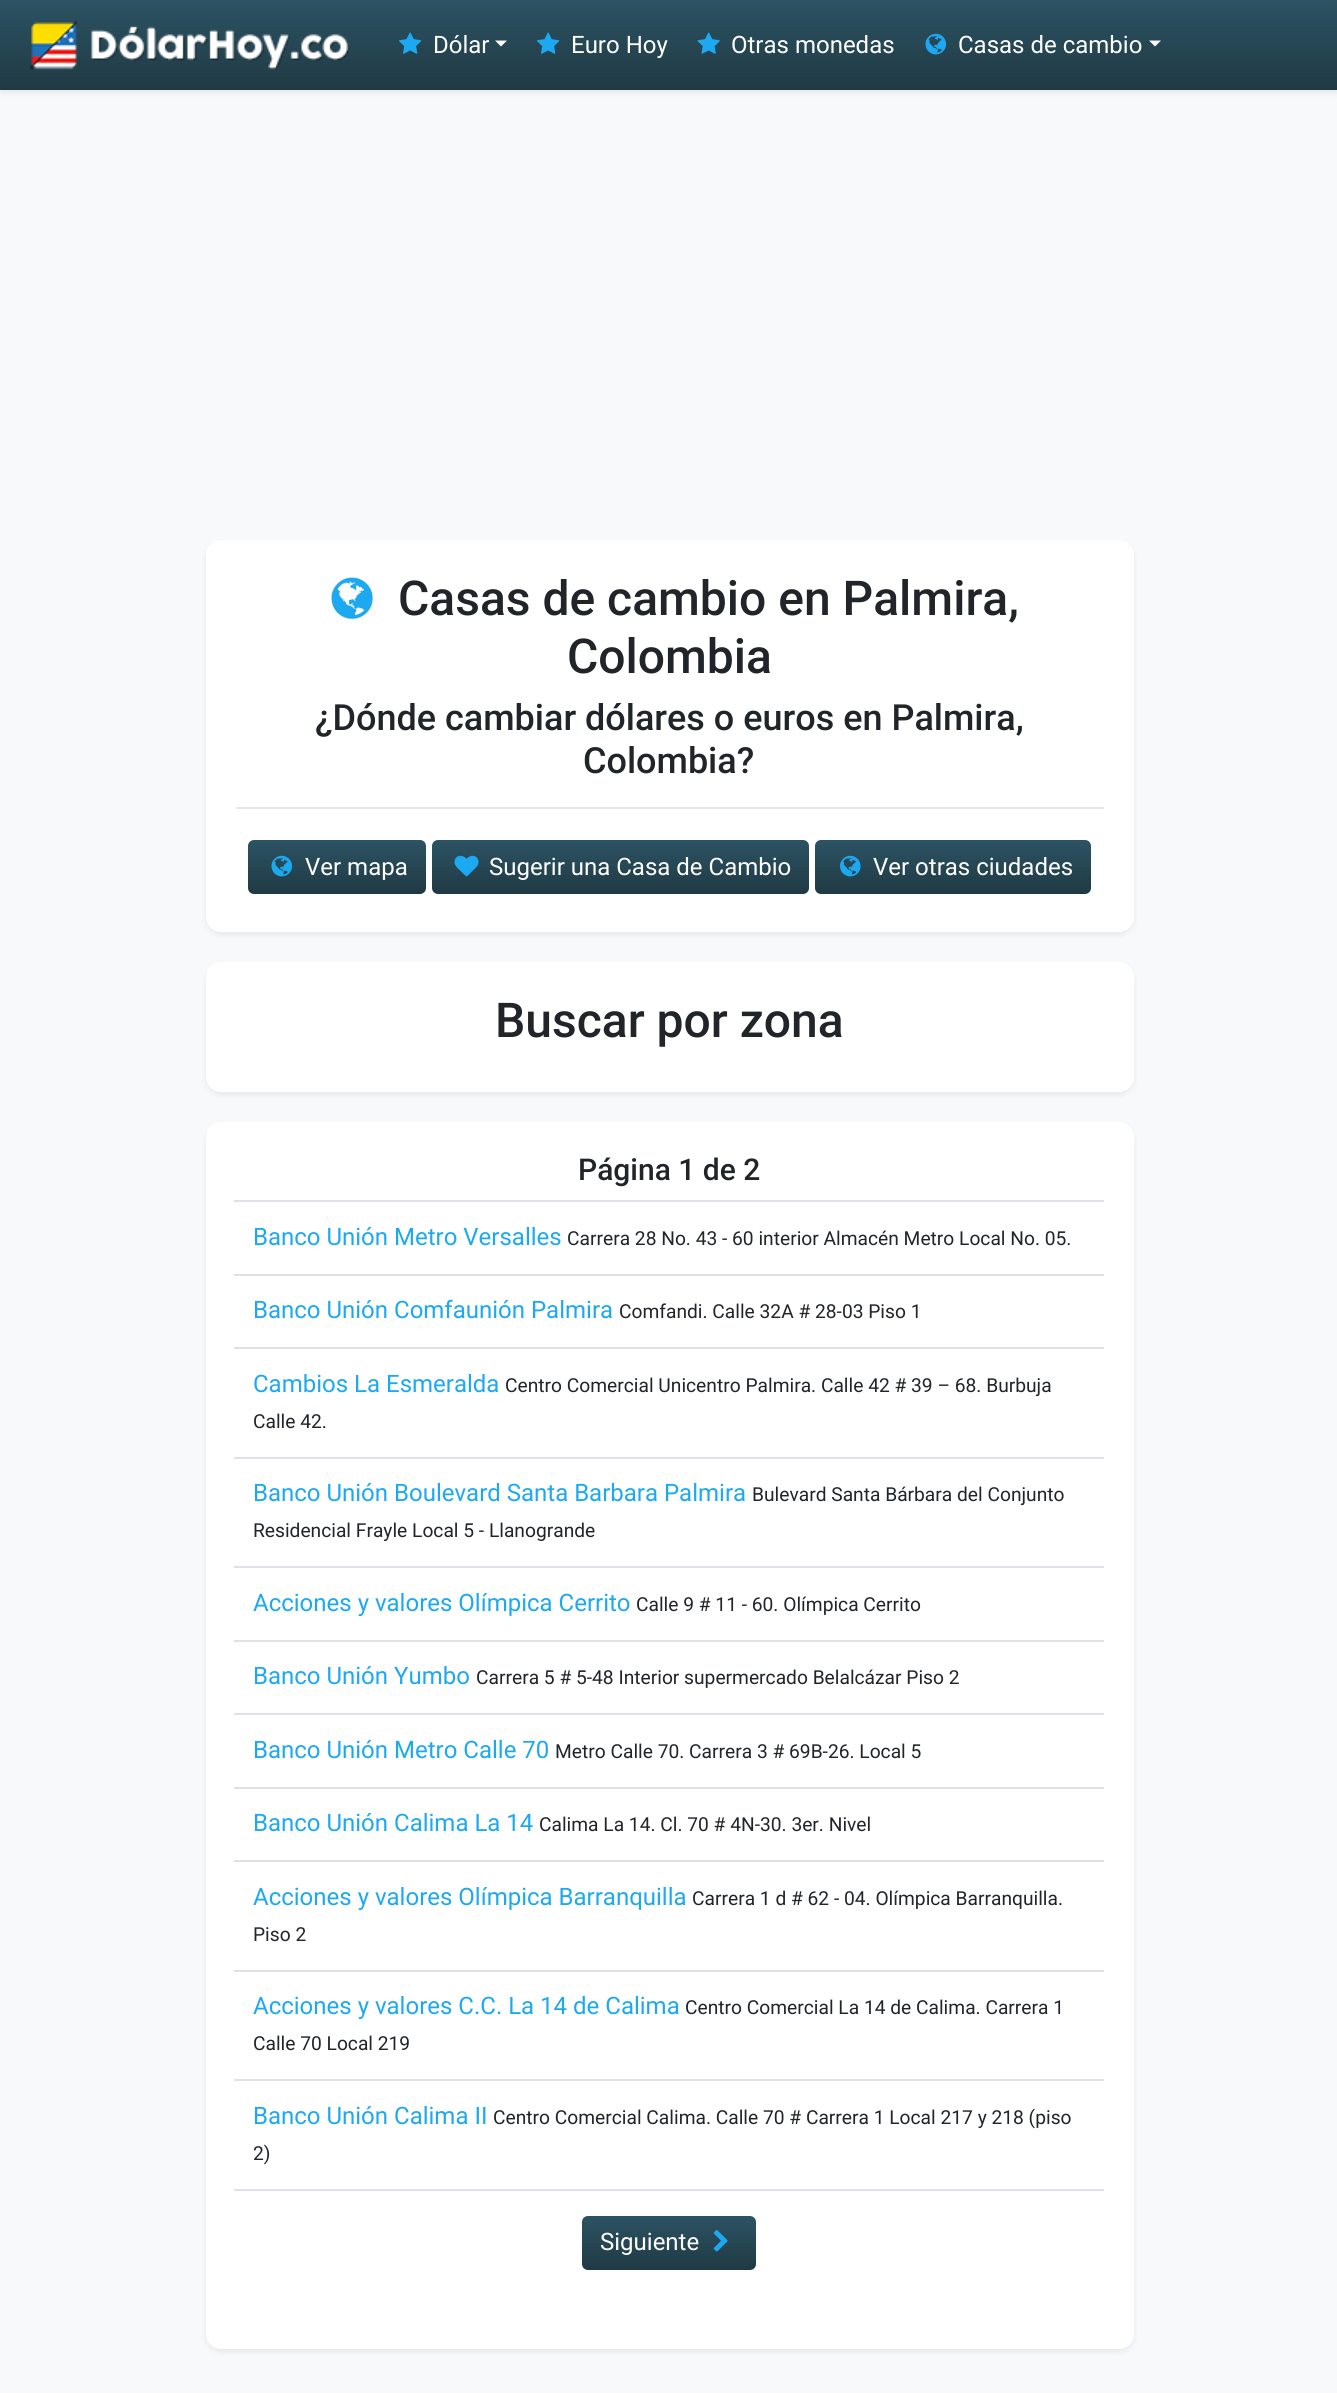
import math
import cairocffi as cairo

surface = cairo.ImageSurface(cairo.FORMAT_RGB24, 1337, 2393)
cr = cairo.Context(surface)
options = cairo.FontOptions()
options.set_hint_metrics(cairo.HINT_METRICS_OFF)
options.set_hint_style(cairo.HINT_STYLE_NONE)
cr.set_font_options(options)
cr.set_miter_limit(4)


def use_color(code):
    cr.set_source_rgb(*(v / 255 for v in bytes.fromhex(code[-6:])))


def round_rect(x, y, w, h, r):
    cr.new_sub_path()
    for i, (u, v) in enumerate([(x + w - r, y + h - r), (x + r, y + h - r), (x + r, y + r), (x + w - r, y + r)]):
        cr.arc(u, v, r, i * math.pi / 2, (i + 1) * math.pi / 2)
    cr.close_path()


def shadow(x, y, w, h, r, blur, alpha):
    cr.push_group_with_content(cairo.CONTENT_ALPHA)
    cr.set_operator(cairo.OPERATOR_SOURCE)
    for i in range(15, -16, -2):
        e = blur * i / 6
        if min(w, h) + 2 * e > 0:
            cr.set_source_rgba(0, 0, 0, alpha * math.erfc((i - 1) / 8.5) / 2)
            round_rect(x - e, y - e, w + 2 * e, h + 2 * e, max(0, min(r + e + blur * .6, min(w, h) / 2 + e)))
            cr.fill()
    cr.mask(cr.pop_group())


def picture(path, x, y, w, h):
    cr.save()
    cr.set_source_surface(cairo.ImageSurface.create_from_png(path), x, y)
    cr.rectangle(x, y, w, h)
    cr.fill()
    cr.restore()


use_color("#f8f9fa")
cr.paint()
use_color("#000000")
shadow(0, 3, 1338, 90, 0, 3, 0.07)
gradient = cairo.LinearGradient(669, 0, 669, 90)
gradient.add_color_stop_rgba(0, 0.173, 0.325, 0.392, 1)
gradient.add_color_stop_rgba(1, 0.125, 0.227, 0.263, 1)
cr.set_source(gradient)
cr.rectangle(0, 0, 1337, 90)
cr.fill()
picture("img1.png", 30, 20, 320, 50)
picture("img2.png", 399, 32, 23, 22)
cr.select_font_face("Roboto")
cr.set_font_size(24)
use_color("#ffffff")
cr.move_to(433, 53)
cr.show_text("Dólar")
cr.new_path()
cr.move_to(495, 40.5)
cr.line_to(507, 40.5)
cr.line_to(501, 46.5)
cr.close_path()
cr.fill()
picture("img2.png", 537, 32, 23, 22)
cr.move_to(571, 53)
cr.show_text("Euro Hoy")
picture("img3.png", 697, 32, 23, 22)
cr.move_to(731, 53)
cr.show_text("Otras monedas")
picture("img4.png", 925, 33, 22, 22)
cr.move_to(958, 53)
cr.show_text("Casas de cambio")
cr.new_path()
cr.move_to(1149, 40.5)
cr.line_to(1161, 40.5)
cr.line_to(1155, 46.5)
cr.close_path()
cr.fill()
use_color("#000000")
shadow(206, 543, 928, 392, 15, 3, 0.07)
use_color("#ffffff")
round_rect(206, 540, 928, 392, 15)
cr.fill()
picture("img5.png", 331, 577, 42, 42)
cr.select_font_face("Roboto Medium")
cr.set_font_size(48)
use_color("#212529")
cr.move_to(398, 615)
cr.show_text("Casas de cambio en Palmira,")
cr.move_to(567, 673)
cr.show_text("Colombia")
cr.set_font_size(36)
cr.move_to(315, 730)
cr.show_text("¿Dónde cambiar dólares o euros en Palmira,")
cr.move_to(583, 773)
cr.show_text("Colombia?")
use_color("#e6e6e6")
cr.rectangle(236, 807, 868, 2)
cr.fill()
gradient = cairo.LinearGradient(337, 840, 337, 894)
gradient.add_color_stop_rgba(0, 0.173, 0.325, 0.392, 1)
gradient.add_color_stop_rgba(1, 0.125, 0.227, 0.263, 1)
cr.set_source(gradient)
round_rect(248, 840, 178, 54, 6)
cr.fill()
picture("img6.png", 271, 855, 22, 22)
cr.select_font_face("Roboto")
cr.set_font_size(24)
use_color("#ffffff")
cr.move_to(305, 875)
cr.show_text("Ver mapa")
gradient = cairo.LinearGradient(620, 840, 620, 894)
gradient.add_color_stop_rgba(0, 0.173, 0.325, 0.392, 1)
gradient.add_color_stop_rgba(1, 0.125, 0.227, 0.263, 1)
cr.set_source(gradient)
round_rect(432, 840, 377, 54, 6)
cr.fill()
picture("img7.png", 454, 855, 25, 22)
use_color("#ffffff")
cr.move_to(489, 875)
cr.show_text("Sugerir una Casa de Cambio")
gradient = cairo.LinearGradient(953, 840, 953, 894)
gradient.add_color_stop_rgba(0, 0.173, 0.325, 0.392, 1)
gradient.add_color_stop_rgba(1, 0.125, 0.227, 0.263, 1)
cr.set_source(gradient)
round_rect(815, 840, 276, 54, 6)
cr.fill()
picture("img8.png", 840, 855, 21, 22)
use_color("#ffffff")
cr.move_to(873, 875)
cr.show_text("Ver otras ciudades")
use_color("#000000")
shadow(206, 965, 928, 130, 15, 3, 0.07)
use_color("#ffffff")
round_rect(206, 962, 928, 130, 15)
cr.fill()
cr.select_font_face("Roboto Medium")
cr.set_font_size(48)
use_color("#212529")
cr.move_to(495, 1037)
cr.show_text("Buscar por zona")
use_color("#000000")
shadow(206, 1125, 928, 1227, 15, 3, 0.07)
use_color("#ffffff")
round_rect(206, 1122, 928, 1227, 15)
cr.fill()
cr.set_font_size(30)
use_color("#212529")
cr.move_to(578, 1180)
cr.show_text("Página 1 de 2")
use_color("#dee2e6")
cr.rectangle(234, 1200, 870, 2)
cr.fill()
cr.select_font_face("Roboto")
cr.set_font_size(24)
use_color("#1ca9f2")
cr.move_to(253, 1245)
cr.show_text("Banco Unión Metro Versalles")
cr.set_font_size(19.2)
use_color("#212529")
cr.move_to(567, 1245)
cr.show_text("Carrera 28 No. 43 - 60 interior Almacén Metro Local No. 05.")
use_color("#dee2e6")
cr.rectangle(234, 1274, 870, 2)
cr.fill()
cr.set_font_size(24)
use_color("#1ca9f2")
cr.move_to(253, 1318)
cr.show_text("Banco Unión Comfaunión Palmira")
cr.set_font_size(19.2)
use_color("#212529")
cr.move_to(619, 1318)
cr.show_text("Comfandi. Calle 32A # 28-03 Piso 1")
use_color("#dee2e6")
cr.rectangle(234, 1347, 870, 2)
cr.fill()
cr.set_font_size(24)
use_color("#1ca9f2")
cr.move_to(253, 1392)
cr.show_text("Cambios La Esmeralda")
cr.set_font_size(19.2)
use_color("#212529")
cr.move_to(505, 1392)
cr.show_text("Centro Comercial Unicentro Palmira. Calle 42 # 39 – 68. Burbuja")
cr.move_to(253, 1428)
cr.show_text("Calle 42.")
use_color("#dee2e6")
cr.rectangle(234, 1457, 870, 2)
cr.fill()
cr.set_font_size(24)
use_color("#1ca9f2")
cr.move_to(253, 1501)
cr.show_text("Banco Unión Boulevard Santa Barbara Palmira")
cr.set_font_size(19.2)
use_color("#212529")
cr.move_to(752, 1501)
cr.show_text("Bulevard Santa Bárbara del Conjunto")
cr.move_to(253, 1537)
cr.show_text("Residencial Frayle Local 5 - Llanogrande")
use_color("#dee2e6")
cr.rectangle(234, 1566, 870, 2)
cr.fill()
cr.set_font_size(24)
use_color("#1ca9f2")
cr.move_to(253, 1611)
cr.show_text("Acciones y valores Olímpica Cerrito")
cr.set_font_size(19.2)
use_color("#212529")
cr.move_to(636, 1611)
cr.show_text("Calle 9 # 11 - 60. Olímpica Cerrito")
use_color("#dee2e6")
cr.rectangle(234, 1640, 870, 2)
cr.fill()
cr.set_font_size(24)
use_color("#1ca9f2")
cr.move_to(253, 1684)
cr.show_text("Banco Unión Yumbo")
cr.set_font_size(19.2)
use_color("#212529")
cr.move_to(476, 1684)
cr.show_text("Carrera 5 # 5-48 Interior supermercado Belalcázar Piso 2")
use_color("#dee2e6")
cr.rectangle(234, 1713, 870, 2)
cr.fill()
cr.set_font_size(24)
use_color("#1ca9f2")
cr.move_to(253, 1758)
cr.show_text("Banco Unión Metro Calle 70")
cr.set_font_size(19.2)
use_color("#212529")
cr.move_to(555, 1758)
cr.show_text("Metro Calle 70. Carrera 3 # 69B-26. Local 5")
use_color("#dee2e6")
cr.rectangle(234, 1787, 870, 2)
cr.fill()
cr.set_font_size(24)
use_color("#1ca9f2")
cr.move_to(253, 1831)
cr.show_text("Banco Unión Calima La 14")
cr.set_font_size(19.2)
use_color("#212529")
cr.move_to(539, 1831)
cr.show_text("Calima La 14. Cl. 70 # 4N-30. 3er. Nivel")
use_color("#dee2e6")
cr.rectangle(234, 1860, 870, 2)
cr.fill()
cr.set_font_size(24)
use_color("#1ca9f2")
cr.move_to(253, 1905)
cr.show_text("Acciones y valores Olímpica Barranquilla")
cr.set_font_size(19.2)
use_color("#212529")
cr.move_to(692, 1905)
cr.show_text("Carrera 1 d # 62 - 04. Olímpica Barranquilla.")
cr.move_to(253, 1941)
cr.show_text("Piso 2")
use_color("#dee2e6")
cr.rectangle(234, 1970, 870, 2)
cr.fill()
cr.set_font_size(24)
use_color("#1ca9f2")
cr.move_to(253, 2014)
cr.show_text("Acciones y valores C.C. La 14 de Calima")
cr.set_font_size(19.2)
use_color("#212529")
cr.move_to(685, 2014)
cr.show_text("Centro Comercial La 14 de Calima. Carrera 1")
cr.move_to(253, 2050)
cr.show_text("Calle 70 Local 219")
use_color("#dee2e6")
cr.rectangle(234, 2079, 870, 2)
cr.fill()
cr.set_font_size(24)
use_color("#1ca9f2")
cr.move_to(253, 2124)
cr.show_text("Banco Unión Calima II")
cr.set_font_size(19.2)
use_color("#212529")
cr.move_to(493, 2124)
cr.show_text("Centro Comercial Calima. Calle 70 # Carrera 1 Local 217 y 218 (piso")
cr.move_to(253, 2160)
cr.show_text("2)")
use_color("#dee2e6")
cr.rectangle(234, 2189, 870, 2)
cr.fill()
gradient = cairo.LinearGradient(669, 2216, 669, 2270)
gradient.add_color_stop_rgba(0, 0.173, 0.325, 0.392, 1)
gradient.add_color_stop_rgba(1, 0.125, 0.227, 0.263, 1)
cr.set_source(gradient)
round_rect(582, 2216, 174, 54, 6)
cr.fill()
cr.set_font_size(24)
use_color("#ffffff")
cr.move_to(600, 2250)
cr.show_text("Siguiente")
picture("img9.png", 713, 2230, 15, 22)
surface.write_to_png("result.png")
